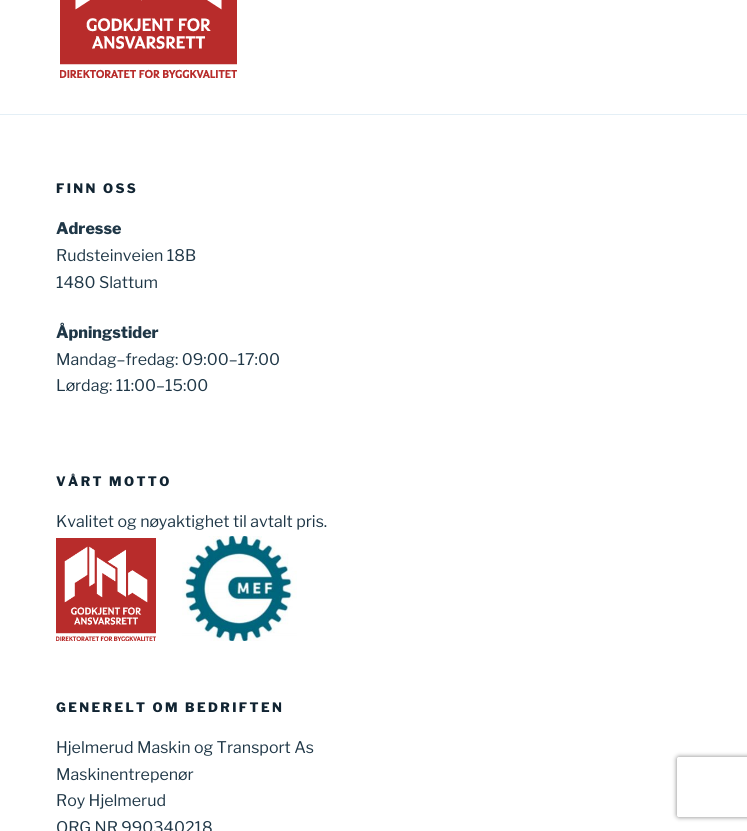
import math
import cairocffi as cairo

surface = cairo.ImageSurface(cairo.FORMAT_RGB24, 747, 831)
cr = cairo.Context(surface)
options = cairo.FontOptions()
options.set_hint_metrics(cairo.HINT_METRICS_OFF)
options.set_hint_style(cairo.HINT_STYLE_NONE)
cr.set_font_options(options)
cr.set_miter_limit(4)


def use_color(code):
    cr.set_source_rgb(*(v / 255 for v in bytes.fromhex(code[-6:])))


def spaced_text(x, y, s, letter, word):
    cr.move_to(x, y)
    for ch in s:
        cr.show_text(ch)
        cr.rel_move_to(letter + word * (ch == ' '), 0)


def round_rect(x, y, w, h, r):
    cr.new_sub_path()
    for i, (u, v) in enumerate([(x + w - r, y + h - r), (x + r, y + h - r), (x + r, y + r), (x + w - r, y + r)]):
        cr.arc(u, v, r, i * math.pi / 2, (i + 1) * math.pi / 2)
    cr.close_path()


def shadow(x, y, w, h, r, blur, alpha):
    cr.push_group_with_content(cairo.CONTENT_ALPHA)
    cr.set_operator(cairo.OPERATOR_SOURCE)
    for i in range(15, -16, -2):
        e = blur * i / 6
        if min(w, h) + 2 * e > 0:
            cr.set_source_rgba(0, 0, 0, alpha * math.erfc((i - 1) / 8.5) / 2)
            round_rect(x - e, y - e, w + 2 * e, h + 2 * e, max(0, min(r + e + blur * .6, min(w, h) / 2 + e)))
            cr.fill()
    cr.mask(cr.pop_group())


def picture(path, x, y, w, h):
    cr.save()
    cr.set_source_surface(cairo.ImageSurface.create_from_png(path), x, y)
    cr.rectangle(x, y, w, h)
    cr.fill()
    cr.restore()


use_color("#ffffff")
cr.paint()
picture("img1.png", 60, 0, 177, 78)
use_color("#e4eff6")
cr.rectangle(0, 114, 747, 1)
cr.fill()
cr.select_font_face("Libre Franklin Thin")
cr.set_font_size(13)
use_color("#112432")
spaced_text(56, 193, "FINN OSS", 2.4, 0)
cr.set_font_size(16)
use_color("#1f3747")
cr.move_to(56, 234)
cr.show_text("Adresse")
cr.select_font_face("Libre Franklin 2 Thin")
cr.move_to(56, 261)
cr.show_text("Rudsteinveien 18B")
cr.move_to(56, 288)
cr.show_text("1480 Slattum")
cr.select_font_face("Libre Franklin Thin")
cr.move_to(56, 338)
cr.show_text("Åpningstider")
cr.select_font_face("Libre Franklin 2 Thin")
cr.move_to(56, 365)
cr.show_text("Mandag–fredag: 09:00–17:00")
cr.move_to(56, 391)
cr.show_text("Lørdag: 11:00–15:00")
cr.select_font_face("Libre Franklin Thin")
cr.set_font_size(13)
use_color("#112432")
spaced_text(56, 486, "VÅRT MOTTO", 2.4, 0)
cr.select_font_face("Libre Franklin 2 Thin")
cr.set_font_size(16)
use_color("#1f3747")
cr.move_to(56, 527)
cr.show_text("Kvalitet og nøyaktighet til avtalt pris.")
picture("img2.png", 56, 538, 100, 103)
picture("img3.png", 182, 536, 115, 105)
cr.select_font_face("Libre Franklin Thin")
cr.set_font_size(13)
use_color("#112432")
spaced_text(56, 712, "GENERELT OM BEDRIFTEN", 2.4, 0)
cr.select_font_face("Libre Franklin 2 Thin")
cr.set_font_size(16)
use_color("#1f3747")
cr.move_to(56, 753)
cr.show_text("Hjelmerud Maskin og Transport As")
cr.move_to(56, 780)
cr.show_text("Maskinentrepenør")
cr.move_to(56, 806)
cr.show_text("Roy Hjelmerud")
cr.move_to(56, 833)
cr.show_text("ORG.NR 990340218")
cr.save()
cr.set_fill_rule(cairo.FILL_RULE_EVEN_ODD)
cr.new_path()
cr.move_to(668, 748)
cr.line_to(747, 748)
cr.line_to(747, 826)
cr.line_to(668, 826)
cr.close_path()
cr.move_to(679, 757)
cr.line_to(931, 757)
cr.curve_to(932, 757, 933, 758, 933, 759)
cr.line_to(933, 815)
cr.curve_to(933, 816, 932, 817, 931, 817)
cr.line_to(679, 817)
cr.curve_to(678, 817, 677, 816, 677, 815)
cr.line_to(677, 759)
cr.curve_to(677, 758, 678, 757, 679, 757)
cr.close_path()
cr.clip()
use_color("#808080")
shadow(677, 757, 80, 60, 2, 2.5, 1)
cr.restore()
surface.write_to_png("result.png")
